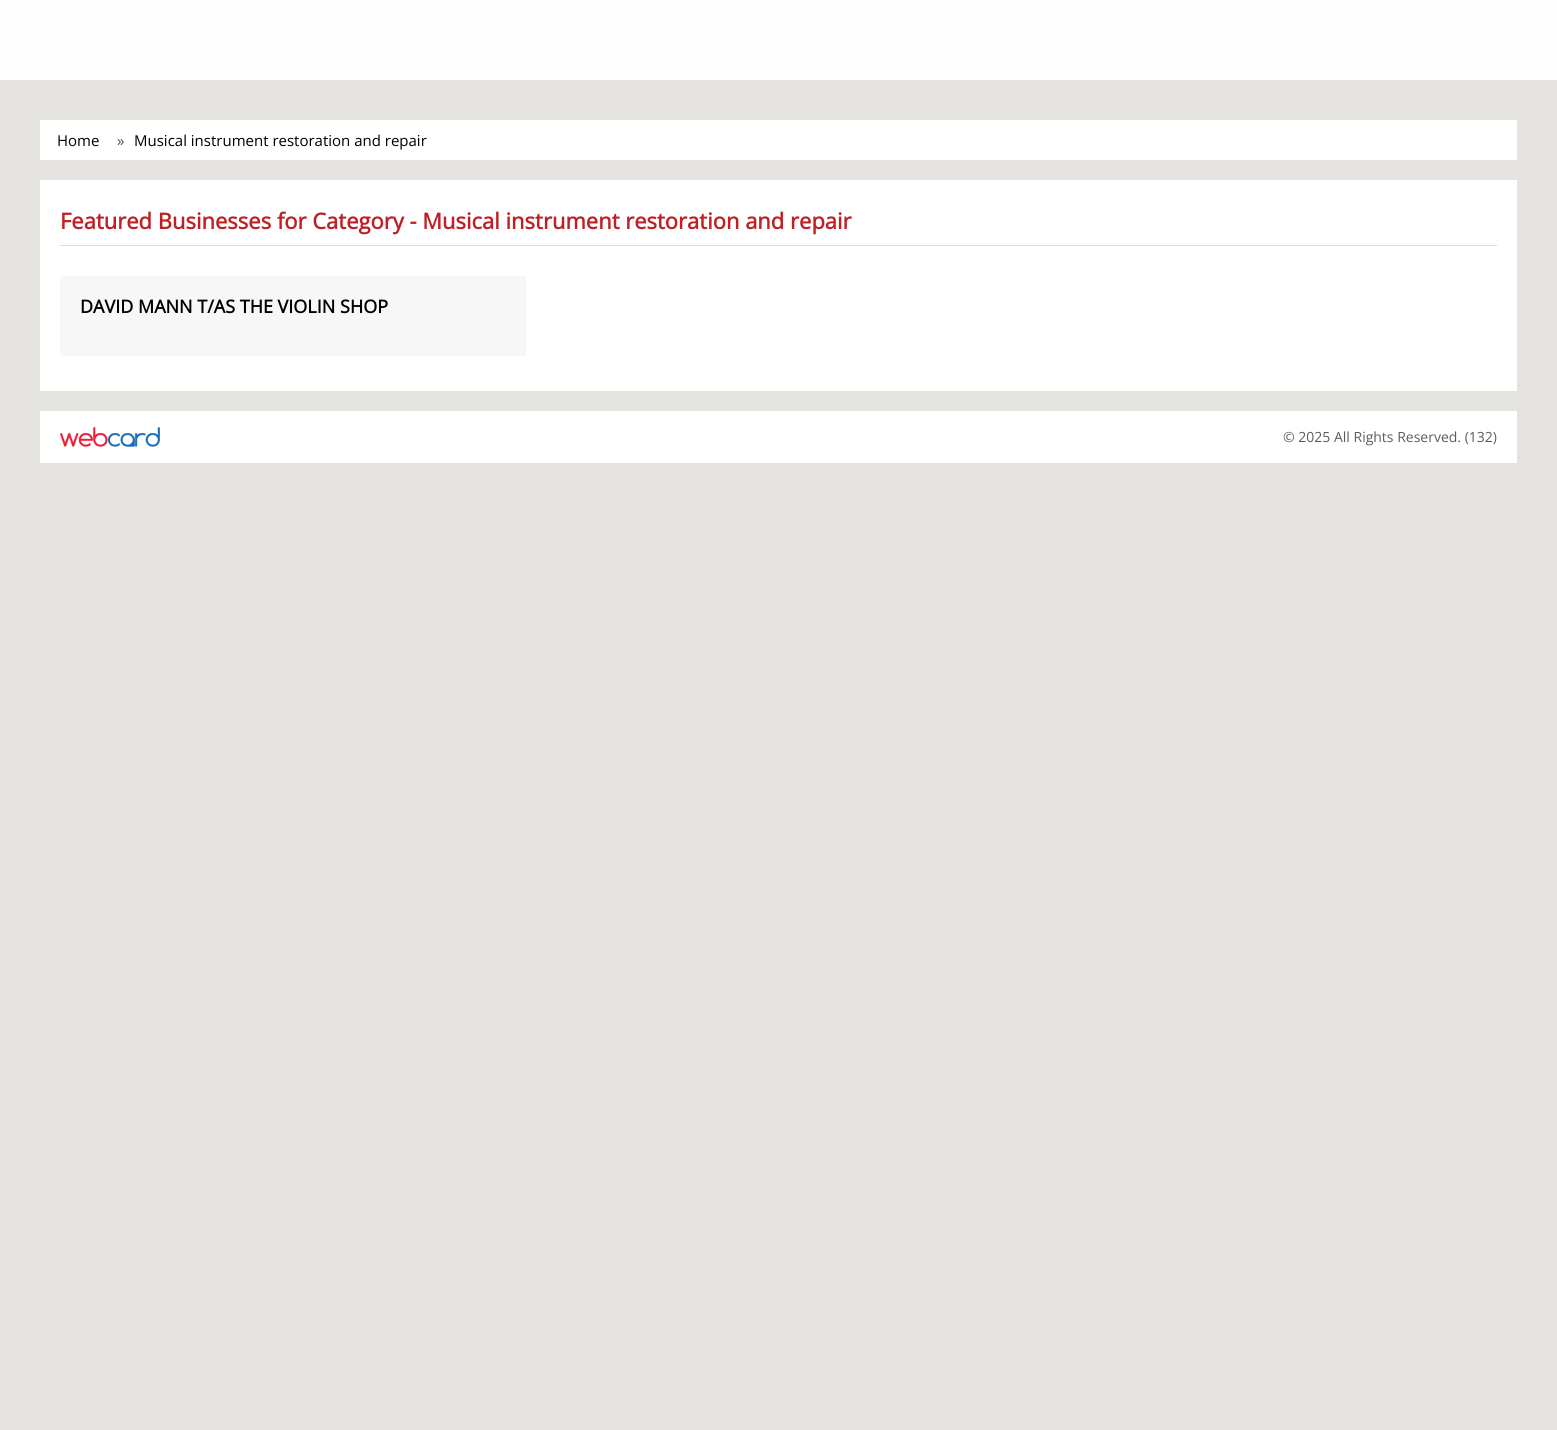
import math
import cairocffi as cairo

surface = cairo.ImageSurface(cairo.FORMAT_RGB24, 1557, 1430)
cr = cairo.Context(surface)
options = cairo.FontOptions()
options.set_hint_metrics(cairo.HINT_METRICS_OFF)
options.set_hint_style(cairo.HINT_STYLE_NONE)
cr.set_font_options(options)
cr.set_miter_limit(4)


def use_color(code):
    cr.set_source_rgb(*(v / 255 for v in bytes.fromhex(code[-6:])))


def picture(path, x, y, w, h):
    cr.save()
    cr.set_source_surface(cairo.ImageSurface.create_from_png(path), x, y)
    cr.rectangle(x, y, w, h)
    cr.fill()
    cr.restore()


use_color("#e5e3df")
cr.paint()
use_color("#fdfdfd")
cr.rectangle(0, 0, 1557, 80)
cr.fill()
use_color("#ffffff")
cr.rectangle(40, 120, 1477, 40)
cr.fill()
cr.select_font_face("Open Sans")
cr.set_font_size(15)
use_color("#000000")
cr.move_to(57, 146)
cr.show_text("Home")
use_color("#4e4e4e")
cr.move_to(117, 146)
cr.show_text("»")
use_color("#000000")
cr.move_to(134, 146)
cr.show_text("Musical instrument restoration and repair")
use_color("#ffffff")
cr.rectangle(40, 180, 1477, 211)
cr.fill()
cr.select_font_face("Open Sans", cairo.FONT_SLANT_NORMAL, cairo.FONT_WEIGHT_BOLD)
cr.set_font_size(22)
use_color("#bd2125")
cr.move_to(60, 229)
cr.show_text("Featured Businesses for Category - Musical instrument restoration and repair")
use_color("#dcdcdc")
cr.rectangle(60, 245, 1437, 1)
cr.fill()
use_color("#f7f7f7")
cr.rectangle(60, 276, 466, 80)
cr.fill()
cr.set_font_size(18)
use_color("#000000")
cr.move_to(80, 313)
cr.show_text("DAVID MANN T/AS THE VIOLIN SHOP")
use_color("#ffffff")
cr.rectangle(40, 411, 1477, 52)
cr.fill()
picture("img1.png", 60, 427, 100, 20)
cr.select_font_face("Open Sans")
cr.set_font_size(14)
use_color("#5c5c5c")
cr.move_to(1283, 442)
cr.show_text("© 2025 All Rights Reserved. (132)")
surface.write_to_png("result.png")
